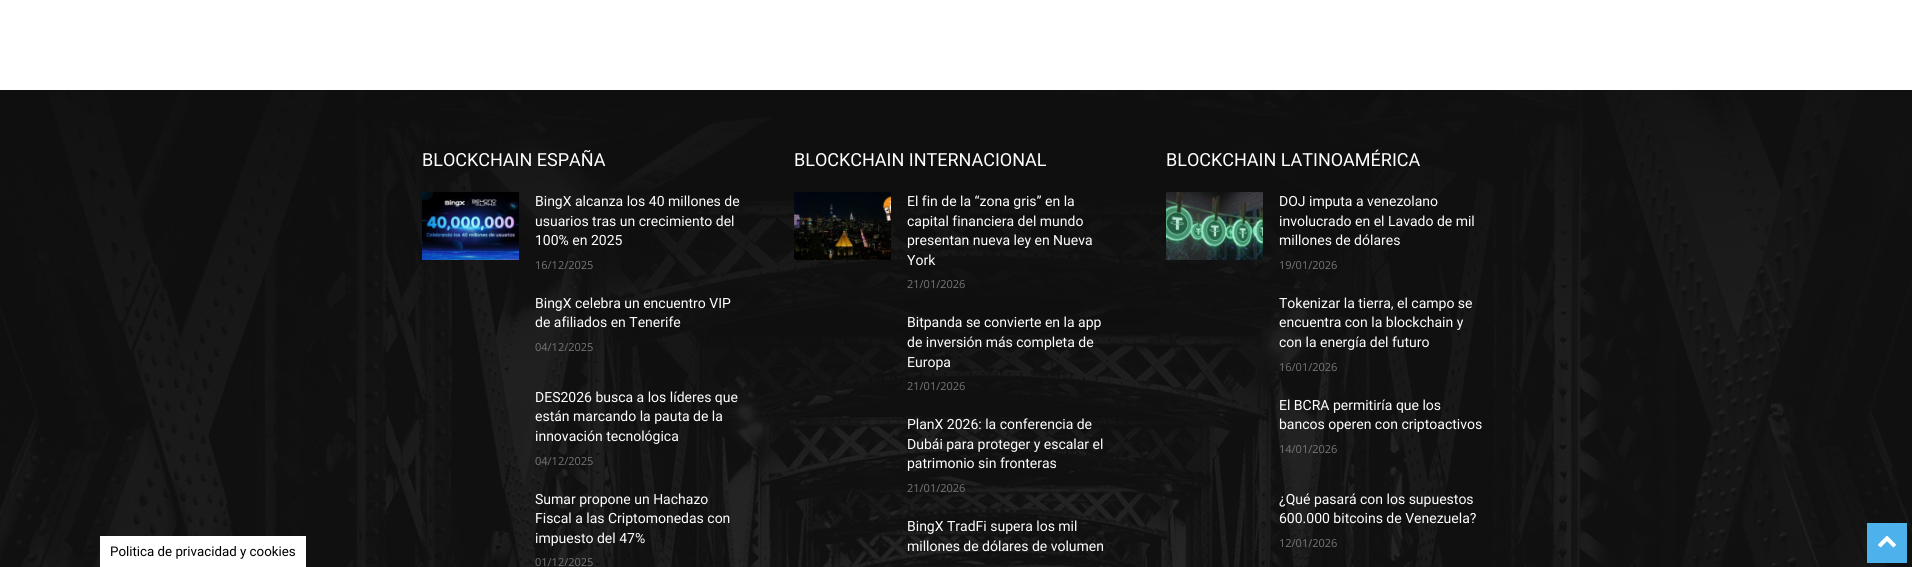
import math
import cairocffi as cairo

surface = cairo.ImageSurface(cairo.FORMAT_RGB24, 1912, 567)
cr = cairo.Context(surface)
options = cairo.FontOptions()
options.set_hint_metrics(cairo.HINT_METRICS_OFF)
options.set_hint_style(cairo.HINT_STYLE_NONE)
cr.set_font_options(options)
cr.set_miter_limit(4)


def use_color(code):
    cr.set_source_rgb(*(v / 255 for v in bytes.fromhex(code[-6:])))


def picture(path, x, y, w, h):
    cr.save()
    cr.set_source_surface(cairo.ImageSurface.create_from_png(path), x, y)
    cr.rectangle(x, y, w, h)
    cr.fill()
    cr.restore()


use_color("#ffffff")
cr.paint()
use_color("#111111")
cr.rectangle(0, 90, 1912, 477)
cr.fill()
picture("img1.png", 0, 90, 1912, 477)
use_color("#ffffff")
cr.rectangle(100, 536, 206, 31)
cr.fill()
cr.select_font_face("Roboto")
cr.set_font_size(13.3)
use_color("#000000")
cr.move_to(110, 556)
cr.show_text("Politica de privacidad y cookies")
cr.set_font_size(18)
use_color("#ffffff")
cr.move_to(422, 166)
cr.show_text("BLOCKCHAIN ESPAÑA")
picture("img2.png", 422, 192, 97, 68)
cr.set_font_size(14)
cr.move_to(535, 206)
cr.show_text("BingX alcanza los 40 millones de")
cr.move_to(535, 226)
cr.show_text("usuarios tras un crecimiento del")
cr.move_to(535, 245)
cr.show_text("100% en 2025")
cr.select_font_face("Open Sans")
cr.set_font_size(11)
use_color("#767676")
cr.move_to(535, 269)
cr.show_text("16/12/2025")
cr.select_font_face("Roboto")
cr.set_font_size(14)
use_color("#ffffff")
cr.move_to(535, 308)
cr.show_text("BingX celebra un encuentro VIP")
cr.move_to(535, 327)
cr.show_text("de afiliados en Tenerife")
cr.select_font_face("Open Sans")
cr.set_font_size(11)
use_color("#767676")
cr.move_to(535, 351)
cr.show_text("04/12/2025")
cr.select_font_face("Roboto")
cr.set_font_size(14)
use_color("#ffffff")
cr.move_to(535, 402)
cr.show_text("DES2026 busca a los líderes que")
cr.move_to(535, 421)
cr.show_text("están marcando la pauta de la")
cr.move_to(535, 441)
cr.show_text("innovación tecnológica")
cr.select_font_face("Open Sans")
cr.set_font_size(11)
use_color("#767676")
cr.move_to(535, 465)
cr.show_text("04/12/2025")
cr.select_font_face("Roboto")
cr.set_font_size(14)
use_color("#ffffff")
cr.move_to(535, 504)
cr.show_text("Sumar propone un Hachazo")
cr.move_to(535, 523)
cr.show_text("Fiscal a las Criptomonedas con")
cr.move_to(535, 543)
cr.show_text("impuesto del 47%")
cr.select_font_face("Open Sans")
cr.set_font_size(11)
use_color("#767676")
cr.move_to(535, 566)
cr.show_text("01/12/2025")
cr.select_font_face("Roboto")
cr.set_font_size(18)
use_color("#ffffff")
cr.move_to(794, 166)
cr.show_text("BLOCKCHAIN INTERNACIONAL")
picture("img3.png", 794, 192, 97, 68)
cr.set_font_size(14)
cr.move_to(907, 206)
cr.show_text("El fin de la “zona gris” en la")
cr.move_to(907, 226)
cr.show_text("capital financiera del mundo")
cr.move_to(907, 245)
cr.show_text("presentan nueva ley en Nueva")
cr.move_to(907, 265)
cr.show_text("York")
cr.select_font_face("Open Sans")
cr.set_font_size(11)
use_color("#767676")
cr.move_to(907, 288)
cr.show_text("21/01/2026")
cr.select_font_face("Roboto")
cr.set_font_size(14)
use_color("#ffffff")
cr.move_to(907, 327)
cr.show_text("Bitpanda se convierte en la app")
cr.move_to(907, 347)
cr.show_text("de inversión más completa de")
cr.move_to(907, 367)
cr.show_text("Europa")
cr.select_font_face("Open Sans")
cr.set_font_size(11)
use_color("#767676")
cr.move_to(907, 390)
cr.show_text("21/01/2026")
cr.select_font_face("Roboto")
cr.set_font_size(14)
use_color("#ffffff")
cr.move_to(907, 429)
cr.show_text("PlanX 2026: la conferencia de")
cr.move_to(907, 449)
cr.show_text("Dubái para proteger y escalar el")
cr.move_to(907, 468)
cr.show_text("patrimonio sin fronteras")
cr.select_font_face("Open Sans")
cr.set_font_size(11)
use_color("#767676")
cr.move_to(907, 492)
cr.show_text("21/01/2026")
cr.select_font_face("Roboto")
cr.set_font_size(14)
use_color("#ffffff")
cr.move_to(907, 531)
cr.show_text("BingX TradFi supera los mil")
cr.move_to(907, 551)
cr.show_text("millones de dólares de volumen")
cr.set_font_size(18)
cr.move_to(1166, 166)
cr.show_text("BLOCKCHAIN LATINOAMÉRICA")
picture("img4.png", 1166, 192, 97, 68)
cr.set_font_size(14)
cr.move_to(1279, 206)
cr.show_text("DOJ imputa a venezolano")
cr.move_to(1279, 226)
cr.show_text("involucrado en el Lavado de mil")
cr.move_to(1279, 245)
cr.show_text("millones de dólares")
cr.select_font_face("Open Sans")
cr.set_font_size(11)
use_color("#767676")
cr.move_to(1279, 269)
cr.show_text("19/01/2026")
cr.select_font_face("Roboto")
cr.set_font_size(14)
use_color("#ffffff")
cr.move_to(1279, 308)
cr.show_text("Tokenizar la tierra, el campo se")
cr.move_to(1279, 327)
cr.show_text("encuentra con la blockchain y")
cr.move_to(1279, 347)
cr.show_text("con la energía del futuro")
cr.select_font_face("Open Sans")
cr.set_font_size(11)
use_color("#767676")
cr.move_to(1279, 371)
cr.show_text("16/01/2026")
cr.select_font_face("Roboto")
cr.set_font_size(14)
use_color("#ffffff")
cr.move_to(1279, 410)
cr.show_text("El BCRA permitiría que los")
cr.move_to(1279, 429)
cr.show_text("bancos operen con criptoactivos")
cr.select_font_face("Open Sans")
cr.set_font_size(11)
use_color("#767676")
cr.move_to(1279, 453)
cr.show_text("14/01/2026")
cr.select_font_face("Roboto")
cr.set_font_size(14)
use_color("#ffffff")
cr.move_to(1279, 504)
cr.show_text("¿Qué pasará con los supuestos")
cr.move_to(1279, 523)
cr.show_text("600.000 bitcoins de Venezuela?")
cr.select_font_face("Open Sans")
cr.set_font_size(11)
use_color("#767676")
cr.move_to(1279, 547)
cr.show_text("12/01/2026")
use_color("#4db2ec")
cr.rectangle(1867, 523, 40, 40)
cr.fill()
picture("img5.png", 1878, 535, 18, 13)
surface.write_to_png("result.png")
